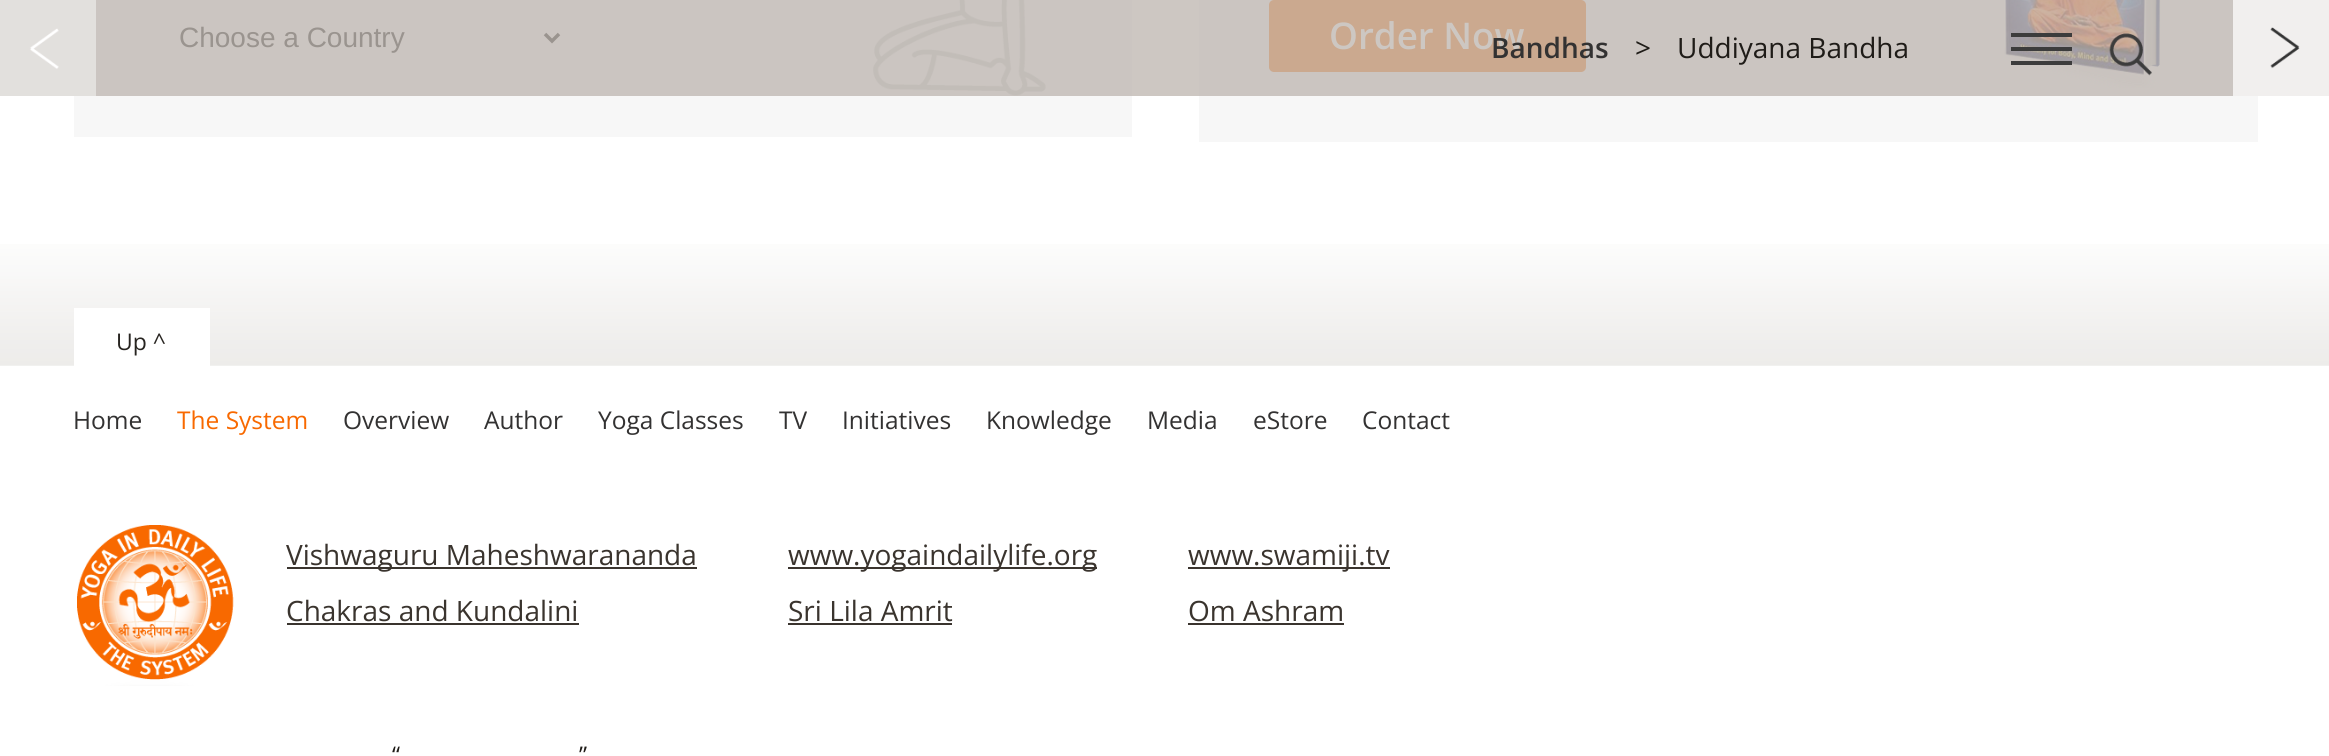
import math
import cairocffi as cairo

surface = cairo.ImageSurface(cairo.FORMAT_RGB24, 2329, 756)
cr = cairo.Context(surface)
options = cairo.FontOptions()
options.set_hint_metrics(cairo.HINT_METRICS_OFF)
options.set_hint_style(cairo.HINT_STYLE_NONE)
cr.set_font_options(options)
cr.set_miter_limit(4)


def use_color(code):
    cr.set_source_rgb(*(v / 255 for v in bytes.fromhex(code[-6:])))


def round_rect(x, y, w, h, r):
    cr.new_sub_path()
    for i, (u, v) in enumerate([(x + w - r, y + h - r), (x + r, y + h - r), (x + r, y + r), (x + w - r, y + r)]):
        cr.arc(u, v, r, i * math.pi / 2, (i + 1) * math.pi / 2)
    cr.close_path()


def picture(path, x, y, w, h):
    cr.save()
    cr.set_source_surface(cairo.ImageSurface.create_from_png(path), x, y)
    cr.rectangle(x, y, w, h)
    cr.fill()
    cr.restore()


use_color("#ffffff")
cr.paint()
use_color("#cdc7c2")
cr.rectangle(1132, 0, 67, 96)
cr.fill()
use_color("#d6d2ce")
cr.rectangle(0, 0, 96, 96)
cr.fill()
picture("img1.png", 0, 0, 96, 96)
use_color("#ebe8e7")
cr.rectangle(2233, 0, 96, 96)
cr.fill()
picture("img2.png", 2233, 0, 96, 96)
use_color("#f7f7f7")
cr.rectangle(74, 96, 1058, 41)
cr.fill()
use_color("#cbc5c1")
cr.rectangle(96, 0, 1036, 96)
cr.fill()
picture("img3.png", 873, 0, 173, 96)
cr.new_path()
cr.move_to(545, 34)
cr.line_to(552, 41)
cr.line_to(559, 34)
use_color("#9a948f")
cr.set_line_width(3.5)
cr.stroke()
cr.select_font_face("Liberation Sans")
cr.set_font_size(28)
cr.move_to(179, 47)
cr.show_text("Choose a Country")
use_color("#f7f7f7")
cr.rectangle(1199, 96, 1059, 46)
cr.fill()
use_color("#cbc5c1")
cr.rectangle(1199, 0, 1034, 96)
cr.fill()
picture("img4.png", 2004, 0, 157, 88)
use_color("#cba98f")
round_rect(1269, 0, 317, 72, 5)
cr.fill()
cr.select_font_face("Open Sans SemiBold")
cr.set_font_size(36.75)
use_color("#cdc7c2")
cr.move_to(1329, 49)
cr.show_text("Order Now")
picture("img5.png", 0, 244, 2329, 122)
use_color("#ffffff")
cr.rectangle(74, 308, 136, 58)
cr.fill()
cr.select_font_face("Open Sans")
cr.set_font_size(23)
use_color("#272420")
cr.move_to(116, 350)
cr.show_text("Up ^")
cr.set_font_size(24.5)
use_color("#333232")
cr.move_to(73, 429)
cr.show_text("Home")
use_color("#f86900")
cr.move_to(177, 429)
cr.show_text("The System")
use_color("#333232")
cr.move_to(343, 429)
cr.show_text("Overview")
cr.move_to(484, 429)
cr.show_text("Author")
cr.move_to(598, 429)
cr.show_text("Yoga Classes")
cr.move_to(779, 429)
cr.show_text("TV")
cr.move_to(842, 429)
cr.show_text("Initiatives")
cr.move_to(986, 429)
cr.show_text("Knowledge")
cr.move_to(1147, 429)
cr.show_text("Media")
cr.move_to(1253, 429)
cr.show_text("eStore")
cr.move_to(1362, 429)
cr.show_text("Contact")
cr.select_font_face("Open Sans SemiBold")
cr.set_font_size(28)
cr.move_to(1491, 58)
cr.show_text("Bandhas")
cr.select_font_face("Open Sans")
use_color("#1f1c18")
cr.move_to(1635, 58)
cr.show_text(">")
cr.move_to(1677, 58)
cr.show_text("Uddiyana Bandha")
use_color("#3c3c3c")
cr.rectangle(2011, 47, 61, 4)
cr.fill()
cr.rectangle(2011, 33, 61, 4)
cr.fill()
cr.rectangle(2011, 61, 61, 4)
cr.fill()
picture("img6.png", 2109, 33, 43, 43)
picture("img7.png", 77, 525, 157, 161)
use_color("#3a342e")
cr.rectangle(287, 567, 410, 2)
cr.fill()
cr.move_to(286, 565)
cr.show_text("Vishwaguru Maheshwarananda")
cr.rectangle(788, 567, 309, 2)
cr.fill()
cr.move_to(788, 565)
cr.show_text("www.yogaindailylife.org")
cr.rectangle(1188, 567, 202, 2)
cr.fill()
cr.move_to(1188, 565)
cr.show_text("www.swamiji.tv")
cr.move_to(286, 621)
cr.show_text("Chakras and Kundalini")
cr.rectangle(287, 623, 292, 2)
cr.fill()
cr.move_to(788, 621)
cr.show_text("Sri Lila Amrit")
cr.rectangle(788, 623, 164, 2)
cr.fill()
cr.move_to(1188, 621)
cr.show_text("Om Ashram")
cr.rectangle(1188, 623, 156, 2)
cr.fill()
cr.set_font_size(23)
use_color("#1f1c18")
cr.move_to(392, 763)
cr.show_text("“")
cr.move_to(579, 763)
cr.show_text("”")
surface.write_to_png("result.png")
